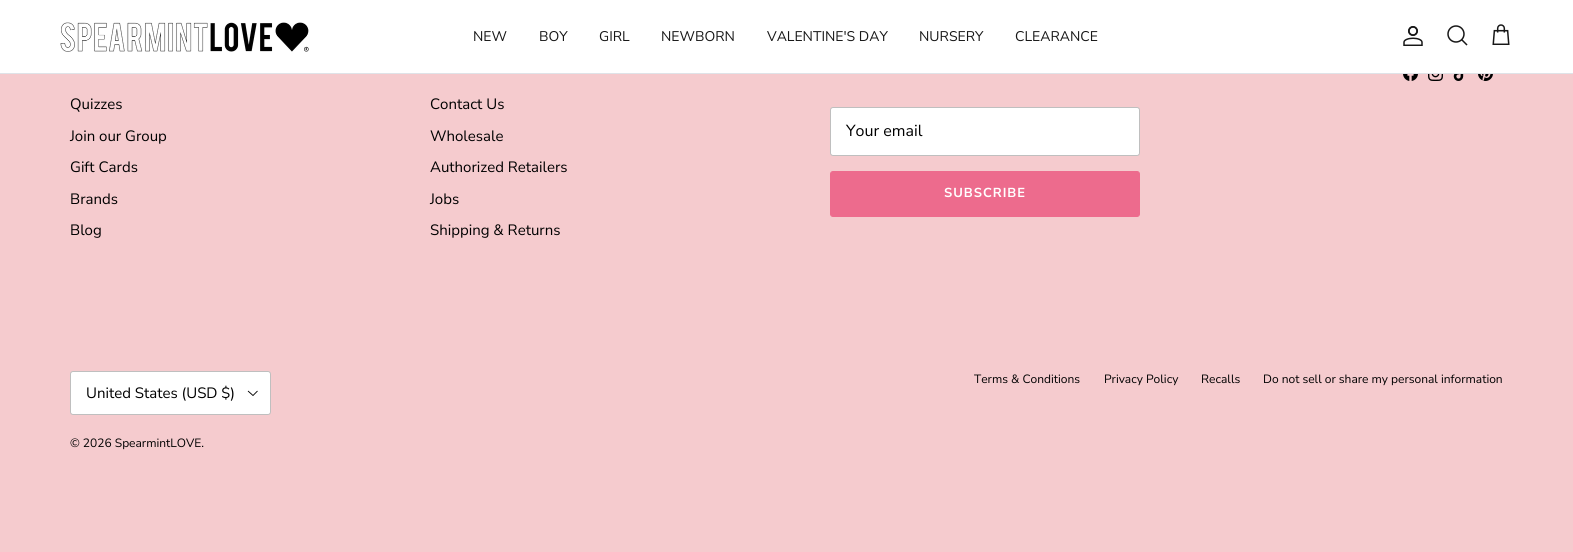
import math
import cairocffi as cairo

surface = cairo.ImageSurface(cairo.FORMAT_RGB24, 1573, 552)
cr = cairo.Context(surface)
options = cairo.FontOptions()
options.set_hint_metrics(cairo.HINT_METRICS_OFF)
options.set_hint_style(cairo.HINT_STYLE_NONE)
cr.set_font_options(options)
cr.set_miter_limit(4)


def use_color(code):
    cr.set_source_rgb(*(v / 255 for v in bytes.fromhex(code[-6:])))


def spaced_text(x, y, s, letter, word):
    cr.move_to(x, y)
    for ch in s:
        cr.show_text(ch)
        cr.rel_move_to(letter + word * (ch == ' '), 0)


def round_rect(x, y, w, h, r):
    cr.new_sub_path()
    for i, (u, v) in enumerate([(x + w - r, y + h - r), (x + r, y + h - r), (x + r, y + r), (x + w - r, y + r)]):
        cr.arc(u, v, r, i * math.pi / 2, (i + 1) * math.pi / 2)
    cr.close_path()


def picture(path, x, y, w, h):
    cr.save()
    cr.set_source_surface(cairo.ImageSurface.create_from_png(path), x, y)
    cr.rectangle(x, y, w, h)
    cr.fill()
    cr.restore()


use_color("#f5cbce")
cr.paint()
use_color("#ffffff")
cr.rectangle(0, 0, 1573, 73)
cr.fill()
use_color("#dfe3e8")
cr.rectangle(0, 73, 1573, 1)
cr.fill()
picture("img1.png", 60, 22, 249, 30)
cr.select_font_face("Nunito Sans")
cr.set_font_size(14)
use_color("#171717")
cr.move_to(473, 41)
cr.show_text("NEW")
cr.move_to(539, 41)
cr.show_text("BOY")
cr.move_to(599, 41)
cr.show_text("GIRL")
cr.move_to(661, 41)
cr.show_text("NEWBORN")
cr.move_to(767, 41)
cr.show_text("VALENTINE'S DAY")
cr.move_to(919, 41)
cr.show_text("NURSERY")
cr.move_to(1015, 41)
cr.show_text("CLEARANCE")
picture("img2.png", 1403, 26, 20, 20)
cr.arc(1456, 34, 8, 0, 2 * math.pi)
cr.set_line_width(1.5)
cr.stroke()
cr.new_path()
cr.move_to(1462, 40)
cr.line_to(1466.5, 44.5)
cr.set_line_cap(cairo.LINE_CAP_SQUARE)
cr.stroke()
picture("img3.png", 1492, 24, 18, 21)
picture("img4.png", 1403, 74, 15, 7)
picture("img5.png", 1428, 74, 15, 7)
picture("img6.png", 1453, 74, 11, 7)
picture("img7.png", 1478, 74, 15, 7)
cr.set_font_size(15)
use_color("#000000")
cr.move_to(70, 109)
cr.show_text("Quizzes")
cr.move_to(70, 141)
cr.show_text("Join our Group")
cr.move_to(70, 172)
cr.show_text("Gift Cards")
cr.move_to(70, 204)
cr.show_text("Brands")
cr.move_to(70, 235)
cr.show_text("Blog")
cr.move_to(430, 109)
cr.show_text("Contact Us")
cr.move_to(430, 141)
cr.show_text("Wholesale")
cr.move_to(430, 172)
cr.show_text("Authorized Retailers")
cr.move_to(430, 204)
cr.show_text("Jobs")
cr.move_to(430, 235)
cr.show_text("Shipping & Returns")
use_color("#ffffff")
round_rect(830.5, 107.5, 309, 48, 2.5)
cr.fill_preserve()
use_color("#bfbfbf")
cr.set_line_width(1)
cr.set_line_cap(cairo.LINE_CAP_BUTT)
cr.stroke()
cr.set_font_size(16)
use_color("#000000")
cr.move_to(846, 136)
cr.show_text("Your email")
use_color("#ed6b8d")
round_rect(830.5, 171.5, 309, 45, 2.5)
cr.fill_preserve()
cr.stroke()
cr.select_font_face("Nunito Sans", cairo.FONT_SLANT_NORMAL, cairo.FONT_WEIGHT_BOLD)
cr.set_font_size(13)
use_color("#ffffff")
spaced_text(944, 197, "SUBSCRIBE", 1, 0)
cr.select_font_face("Nunito Sans")
cr.set_font_size(12)
use_color("#000000")
cr.move_to(974, 383)
cr.show_text("Terms & Conditions")
cr.move_to(1104, 383)
cr.show_text("Privacy Policy")
cr.move_to(1201, 383)
cr.show_text("Recalls")
cr.move_to(1263, 383)
cr.show_text("Do not sell or share my personal information")
use_color("#ffffff")
round_rect(70.5, 371.5, 200, 43, 2.5)
cr.fill_preserve()
use_color("#bfbfbf")
cr.stroke()
cr.set_font_size(15)
use_color("#000000")
cr.move_to(86, 398)
cr.show_text("United States (USD $)")
cr.new_path()
cr.move_to(257.5, 391)
cr.line_to(253, 395.5)
cr.line_to(248, 391)
cr.set_line_width(0.9)
cr.stroke()
cr.set_font_size(12)
cr.move_to(70, 447)
cr.show_text("© 2026 SpearmintLOVE.")
surface.write_to_png("result.png")
